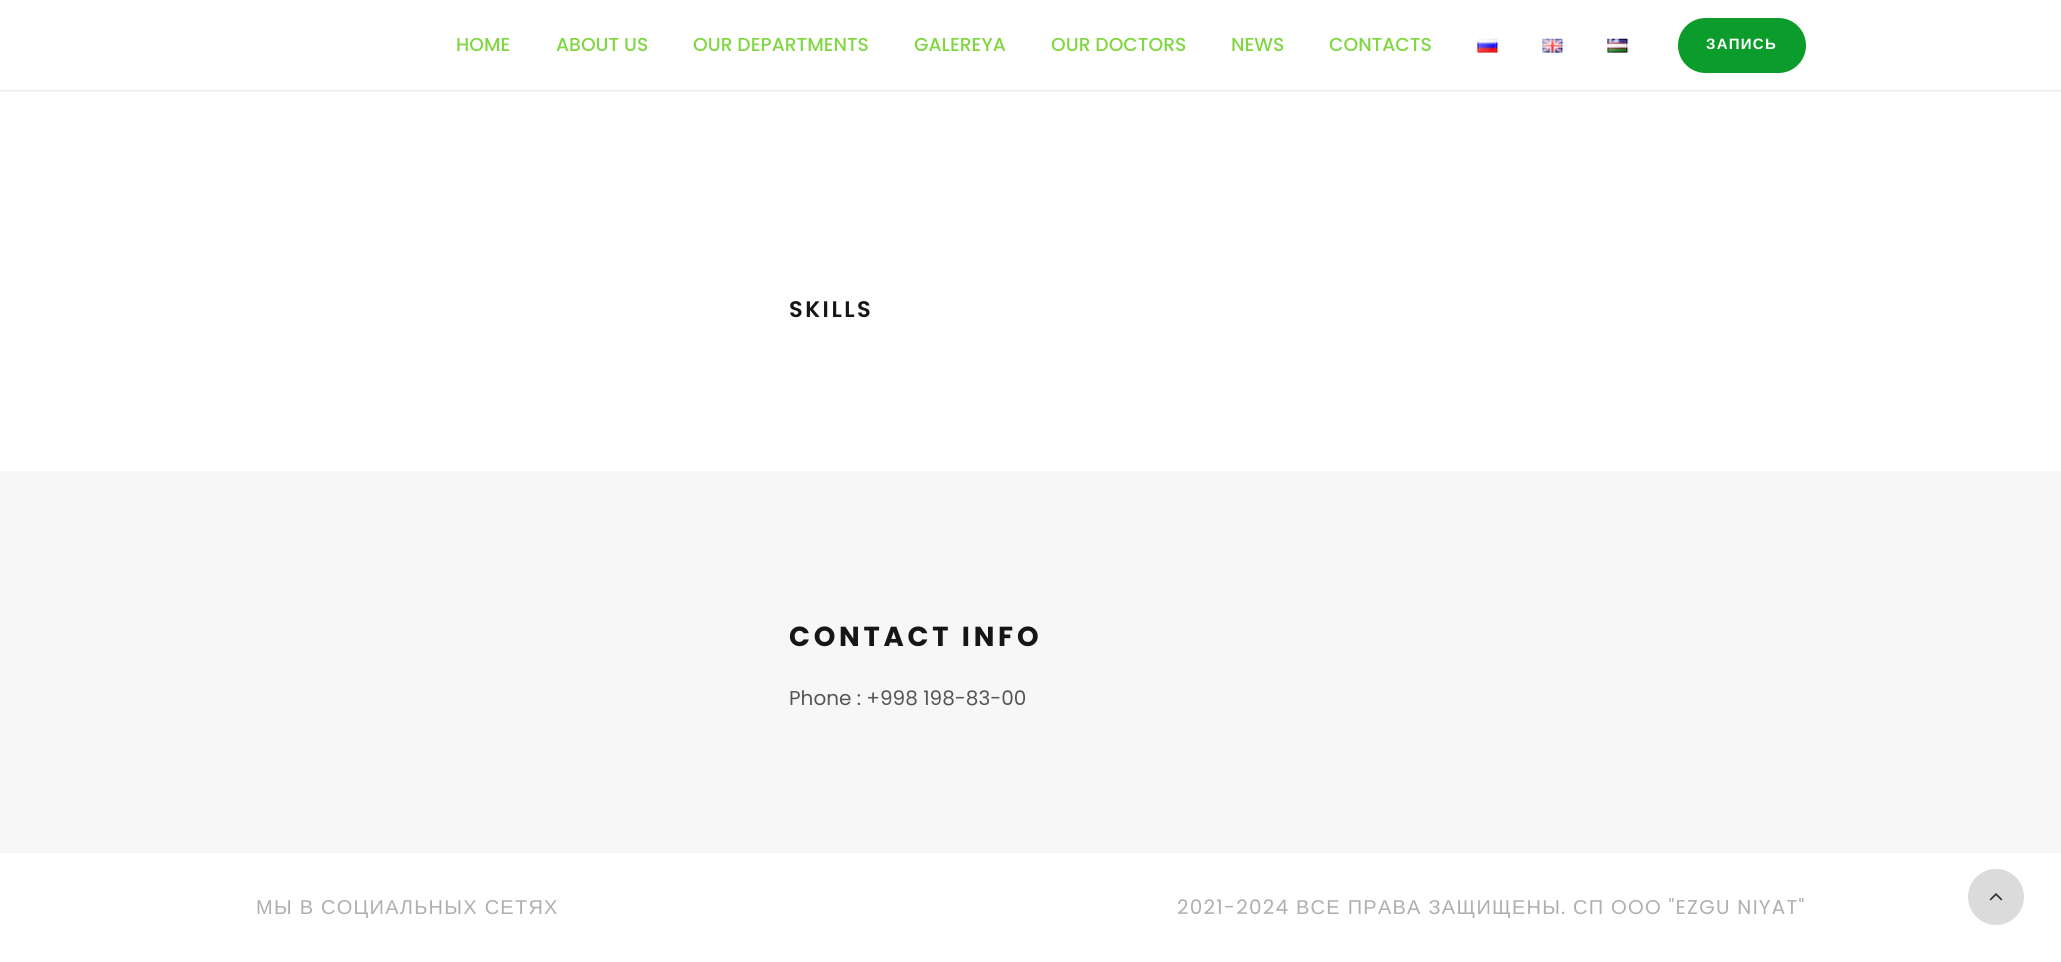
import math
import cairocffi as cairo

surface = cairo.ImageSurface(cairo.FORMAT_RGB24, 2061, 962)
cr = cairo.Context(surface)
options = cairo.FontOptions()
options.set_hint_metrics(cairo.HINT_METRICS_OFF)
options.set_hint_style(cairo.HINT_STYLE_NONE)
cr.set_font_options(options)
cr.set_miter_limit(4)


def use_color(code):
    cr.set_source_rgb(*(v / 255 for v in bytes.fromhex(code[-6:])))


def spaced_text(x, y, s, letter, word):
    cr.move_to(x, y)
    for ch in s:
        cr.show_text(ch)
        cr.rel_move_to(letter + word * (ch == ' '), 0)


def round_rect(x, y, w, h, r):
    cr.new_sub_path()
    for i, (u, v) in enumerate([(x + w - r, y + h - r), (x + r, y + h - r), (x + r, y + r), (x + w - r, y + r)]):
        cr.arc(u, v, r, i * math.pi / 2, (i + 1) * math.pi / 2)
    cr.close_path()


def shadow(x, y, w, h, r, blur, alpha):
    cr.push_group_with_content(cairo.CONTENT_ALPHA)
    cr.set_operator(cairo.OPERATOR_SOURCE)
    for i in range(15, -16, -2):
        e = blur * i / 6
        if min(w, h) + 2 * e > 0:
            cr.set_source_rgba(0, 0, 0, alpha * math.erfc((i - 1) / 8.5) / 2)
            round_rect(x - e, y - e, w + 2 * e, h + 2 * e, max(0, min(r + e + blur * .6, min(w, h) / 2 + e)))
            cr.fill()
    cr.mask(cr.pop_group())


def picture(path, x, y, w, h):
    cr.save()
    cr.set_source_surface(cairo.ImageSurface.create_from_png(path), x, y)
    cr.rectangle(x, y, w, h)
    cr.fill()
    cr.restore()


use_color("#ffffff")
cr.paint()
use_color("#000000")
shadow(0, 1, 2061, 90, 0, 1, 0.1)
use_color("#ffffff")
cr.rectangle(0, 0, 2061, 90)
cr.fill()
cr.select_font_face("Poppins Medium")
cr.set_font_size(18.75)
use_color("#81d742")
cr.move_to(456, 51)
cr.show_text("HOME")
cr.move_to(556, 51)
cr.show_text("ABOUT US")
cr.move_to(693, 51)
cr.show_text("OUR DEPARTMENTS")
cr.move_to(914, 51)
cr.show_text("GALEREYA")
cr.move_to(1051, 51)
cr.show_text("OUR DOCTORS")
cr.move_to(1231, 51)
cr.show_text("NEWS")
cr.move_to(1329, 51)
cr.show_text("CONTACTS")
picture("img1.png", 1477, 38, 22, 15)
picture("img2.png", 1542, 38, 22, 15)
picture("img3.png", 1607, 38, 22, 15)
use_color("#0c9c2b")
round_rect(1679.5, 19.5, 125, 52, 26)
cr.fill_preserve()
cr.set_line_width(3)
cr.stroke()
cr.select_font_face("Liberation Sans", cairo.FONT_SLANT_NORMAL, cairo.FONT_WEIGHT_BOLD)
cr.set_font_size(15)
use_color("#ffffff")
spaced_text(1706, 49, "ЗАПИСЬ", 1.25, 0)
cr.select_font_face("Poppins SemiBold")
cr.set_font_size(22.5)
use_color("#161616")
spaced_text(789, 317, "SKILLS", 2.5, 0)
use_color("#f7f7f7")
cr.rectangle(0, 471, 2061, 382)
cr.fill()
cr.select_font_face("Poppins", cairo.FONT_SLANT_NORMAL, cairo.FONT_WEIGHT_BOLD)
cr.set_font_size(27.5)
use_color("#161616")
spaced_text(789, 646, "CONTACT INFO", 3.75, 0)
cr.select_font_face("Poppins")
cr.set_font_size(20)
use_color("#555555")
cr.move_to(789, 705)
cr.show_text("Phone : +998 198-83-00")
cr.select_font_face("Liberation Sans")
use_color("#afafaf")
spaced_text(256, 914, "МЫ В СОЦИАЛЬНЫХ СЕТЯХ", 1.25, 0)
cr.select_font_face("Poppins")
spaced_text(1177, 914, "2021-2024", 1.25, 0)
cr.select_font_face("Liberation Sans")
spaced_text(1296, 914, "ВСЕ ПРАВА ЗАЩИЩЕНЫ", 1.25, 0)
cr.select_font_face("Poppins")
spaced_text(1561, 914, ".", 1.25, 0)
cr.select_font_face("Liberation Sans")
spaced_text(1573, 914, "СП", 1.25, 0)
cr.select_font_face("Poppins")
spaced_text(1611, 914, "OOO \"EZGU NIYAT\"", 1.25, 0)
use_color("#dbdbdb")
cr.new_path()
cr.arc(1996, 897, 28, 0, 2 * math.pi)
cr.fill()
picture("img4.png", 1989, 893, 14, 8)
surface.write_to_png("result.png")
